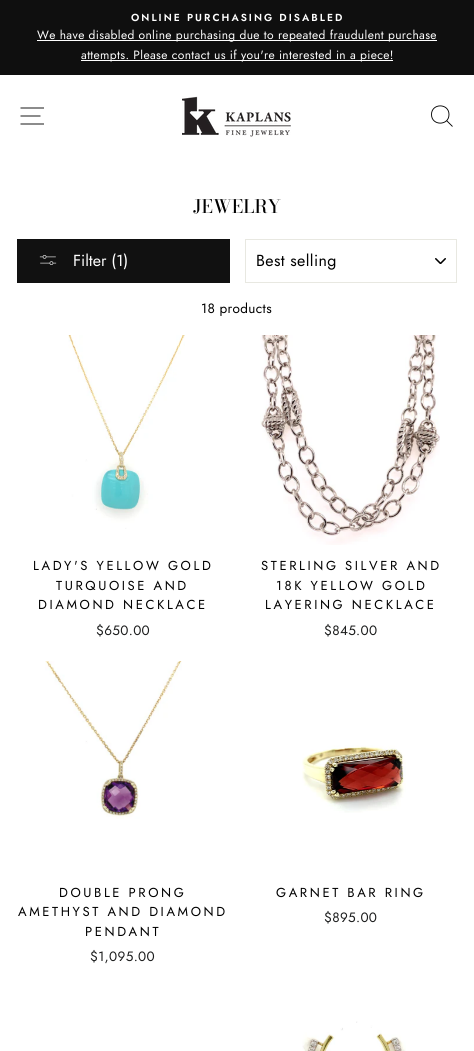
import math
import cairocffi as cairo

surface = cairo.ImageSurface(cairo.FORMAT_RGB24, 474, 1051)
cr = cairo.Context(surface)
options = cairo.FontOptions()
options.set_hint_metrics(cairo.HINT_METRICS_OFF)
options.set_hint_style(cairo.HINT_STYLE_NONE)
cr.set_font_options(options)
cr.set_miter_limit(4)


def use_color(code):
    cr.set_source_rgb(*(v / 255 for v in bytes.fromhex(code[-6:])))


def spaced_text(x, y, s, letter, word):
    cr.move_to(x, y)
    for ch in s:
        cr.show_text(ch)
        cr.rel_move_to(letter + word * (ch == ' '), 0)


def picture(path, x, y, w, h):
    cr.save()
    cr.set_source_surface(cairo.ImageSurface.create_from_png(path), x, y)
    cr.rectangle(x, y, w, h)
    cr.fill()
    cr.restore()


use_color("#ffffff")
cr.paint()
use_color("#0f0f0f")
cr.rectangle(0, 0, 474, 75)
cr.fill()
cr.select_font_face("Jost SemiBold")
cr.set_font_size(10.2)
use_color("#ffffff")
spaced_text(131, 21, "ONLINE PURCHASING DISABLED", 2.05, 0)
cr.rectangle(37, 40, 400, 1)
cr.fill()
cr.select_font_face("Jost")
cr.set_font_size(12)
spaced_text(37, 39, "We have disabled online purchasing due to repeated fraudulent purchase", 0.35, 0)
cr.rectangle(81, 60, 312, 1)
cr.fill()
spaced_text(81, 59, "attempts. Please contact us if you're interested in a piece!", 0.35, 0)
cr.new_path()
cr.move_to(20.5, 108)
cr.line_to(44, 108)
cr.move_to(20.5, 116)
cr.line_to(40.5, 116)
cr.move_to(20.5, 124)
cr.line_to(44, 124)
use_color("#000000")
cr.set_line_width(0.9)
cr.stroke()
picture("img1.png", 182, 96, 109, 41)
cr.new_path()
cr.move_to(449, 114.5)
cr.curve_to(449, 126, 431.5, 126, 431.5, 114.5)
cr.curve_to(431.5, 103, 449, 103, 449, 114.5)
cr.close_path()
cr.move_to(452.5, 126.5)
cr.line_to(446.5, 120.5)
cr.stroke()
cr.select_font_face("Bodoni Moda Medium")
cr.set_font_size(18.5)
cr.move_to(193, 213)
cr.show_text("JEWELRY")
use_color("#111111")
cr.rectangle(17, 239, 213, 44)
cr.fill()
picture("img2.png", 39, 255, 18, 10)
cr.select_font_face("Jost")
cr.set_font_size(16)
use_color("#ffffff")
cr.move_to(73, 266)
cr.show_text("Filter (1)")
picture("img3.png", 435, 258, 11, 6)
cr.rectangle(245.5, 239.5, 211, 43)
use_color("#e8e8e1")
cr.set_line_width(1)
cr.stroke()
use_color("#000000")
spaced_text(256, 266, "Best selling", 0.4, 0)
cr.set_font_size(13.5)
spaced_text(201, 313, "18 products", 0.35, 0)
picture("img4.png", 68, 335, 117, 194)
cr.set_font_size(13)
spaced_text(33, 570, "LADY'S YELLOW GOLD", 2.6, 0)
spaced_text(56, 590, "TURQUOISE AND", 2.6, 0)
spaced_text(38, 609, "DIAMOND NECKLACE", 2.6, 0)
cr.set_font_size(13.5)
use_color("#1c1d1d")
spaced_text(96, 635, "$650.00", 0.35, 0)
picture("img5.png", 260, 335, 180, 210)
cr.set_font_size(13)
use_color("#000000")
spaced_text(261, 570, "STERLING SILVER AND", 2.6, 0)
spaced_text(276, 590, "18K YELLOW GOLD", 2.6, 0)
spaced_text(265, 609, "LAYERING NECKLACE", 2.6, 0)
cr.set_font_size(13.5)
use_color("#1c1d1d")
spaced_text(324, 635, "$845.00", 0.35, 0)
picture("img6.png", 45, 661, 137, 158)
cr.set_font_size(13)
use_color("#000000")
spaced_text(59, 897, "DOUBLE PRONG", 2.6, 0)
spaced_text(18, 916, "AMETHYST AND DIAMOND", 2.6, 0)
spaced_text(85, 936, "PENDANT", 2.6, 0)
cr.set_font_size(13.5)
use_color("#1c1d1d")
spaced_text(90, 961, "$1,095.00", 0.35, 0)
picture("img7.png", 302, 745, 104, 68)
cr.set_font_size(13)
use_color("#000000")
spaced_text(276, 897, "GARNET BAR RING", 2.6, 0)
cr.set_font_size(13.5)
use_color("#1c1d1d")
spaced_text(324, 922, "$895.00", 0.35, 0)
picture("img8.png", 302, 1021, 104, 30)
surface.write_to_png("result.png")
